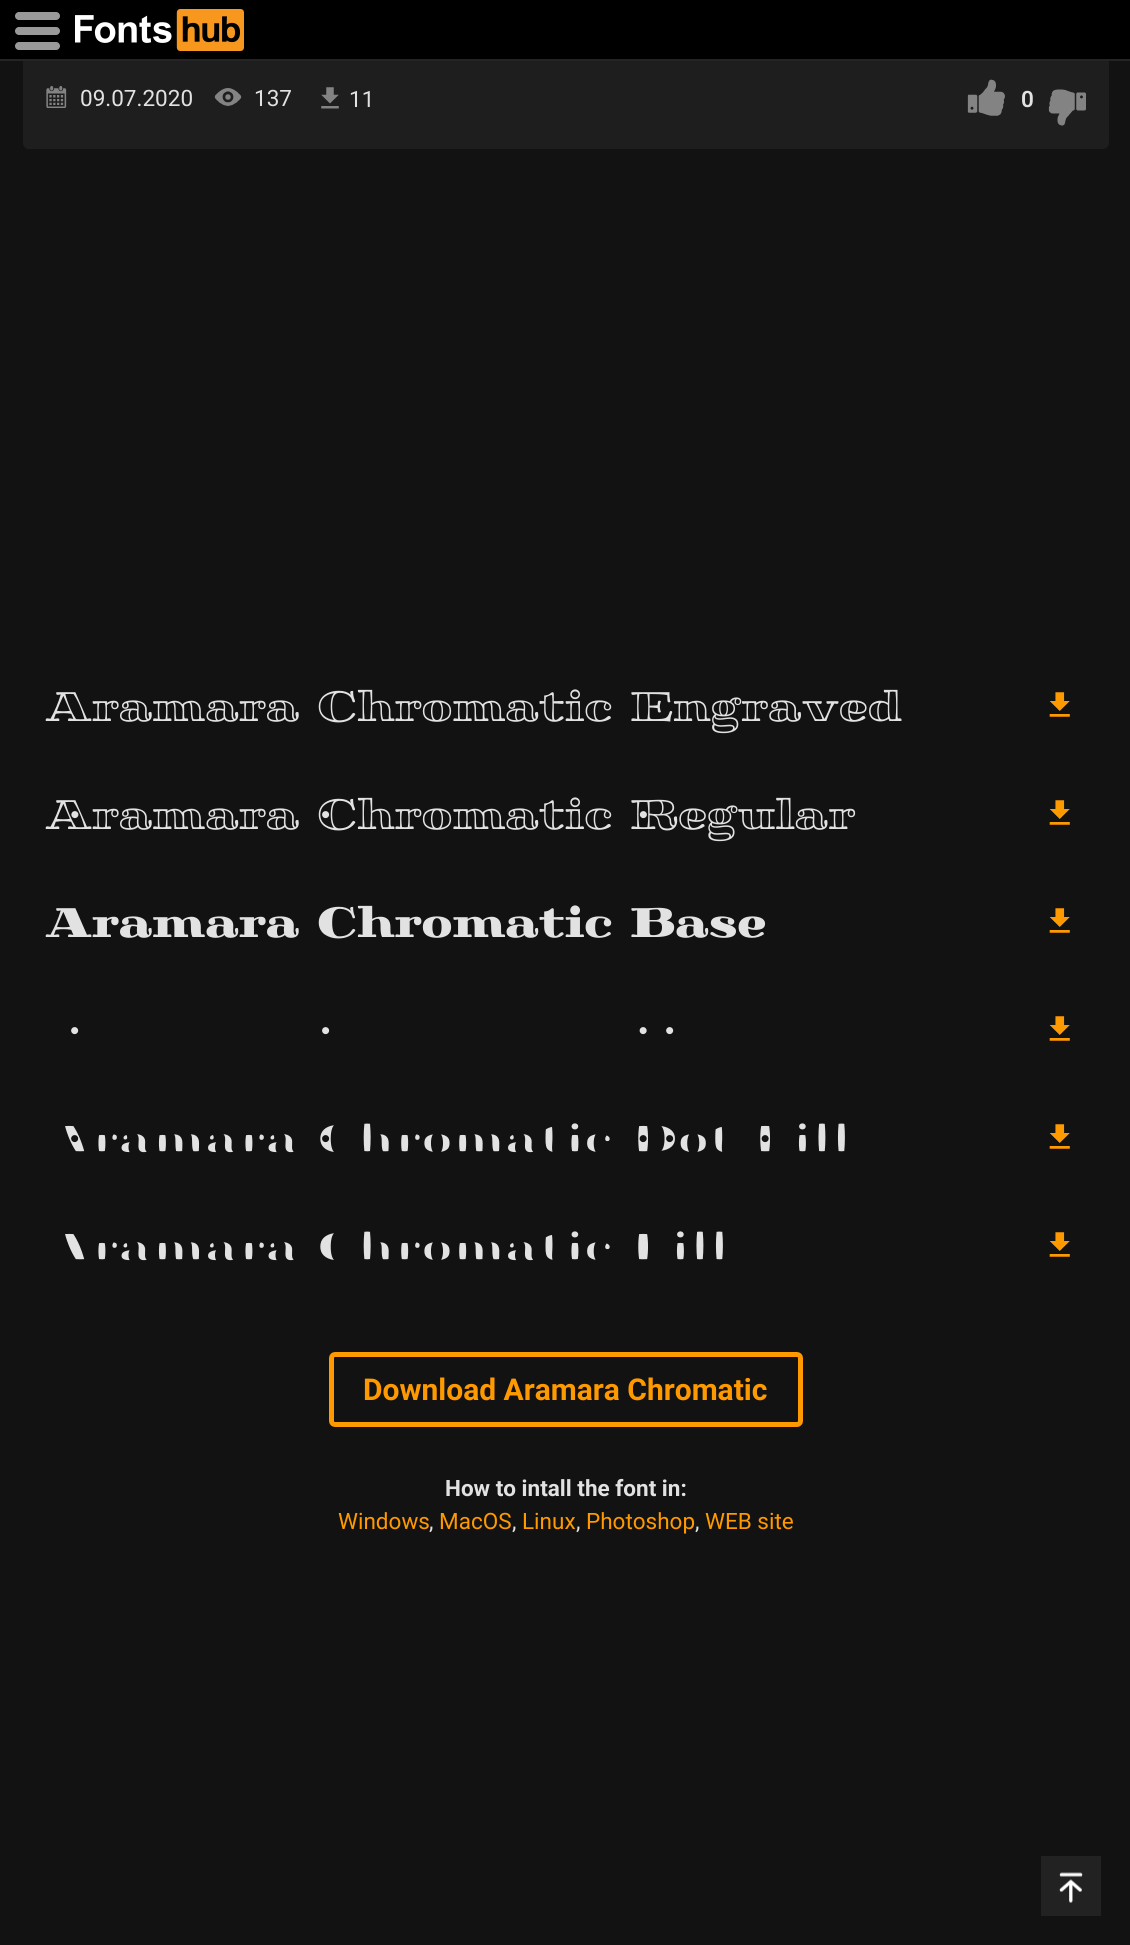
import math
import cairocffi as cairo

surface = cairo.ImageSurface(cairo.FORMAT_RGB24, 1130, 1945)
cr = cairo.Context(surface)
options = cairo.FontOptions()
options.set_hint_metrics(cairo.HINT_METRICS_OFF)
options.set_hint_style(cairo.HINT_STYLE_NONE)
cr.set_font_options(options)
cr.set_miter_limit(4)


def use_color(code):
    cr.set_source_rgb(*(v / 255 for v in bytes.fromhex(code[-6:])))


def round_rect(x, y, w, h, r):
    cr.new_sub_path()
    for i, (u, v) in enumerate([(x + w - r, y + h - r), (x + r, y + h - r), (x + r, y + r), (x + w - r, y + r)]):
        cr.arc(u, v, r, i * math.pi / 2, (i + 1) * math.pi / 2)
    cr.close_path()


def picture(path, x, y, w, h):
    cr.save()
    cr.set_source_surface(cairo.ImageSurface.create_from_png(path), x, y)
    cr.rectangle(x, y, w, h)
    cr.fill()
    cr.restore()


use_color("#121212")
cr.paint()
use_color("#1e1e1e")
round_rect(23, -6, 1086, 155, 6)
cr.fill()
use_color("#000000")
cr.rectangle(0, 0, 1130, 59)
cr.fill()
use_color("#242424")
cr.rectangle(0, 59, 1130, 2)
cr.fill()
use_color("#999999")
round_rect(15, 27, 45, 8, 4)
cr.fill()
round_rect(15, 12, 45, 8, 4)
cr.fill()
round_rect(15, 42, 45, 8, 4)
cr.fill()
picture("img1.png", 75, 9, 169, 42)
picture("img2.png", 46, 86, 21, 22)
cr.select_font_face("Roboto")
cr.set_font_size(22.5)
use_color("#e2e2e2")
cr.move_to(80, 106)
cr.show_text("09.07.2020")
picture("img3.png", 214, 88, 28, 18)
cr.move_to(254, 106)
cr.show_text("137")
picture("img4.png", 321, 87, 18, 22)
cr.move_to(349, 107)
cr.show_text("11")
picture("img5.png", 967, 79, 38, 37)
cr.select_font_face("Roboto SemiBold")
cr.move_to(1021, 107)
cr.show_text("0")
picture("img6.png", 1048, 89, 38, 37)
cr.select_font_face("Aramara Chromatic")
cr.set_font_size(45)
cr.move_to(45, 721)
cr.show_text("Aramara Chromatic Engraved")
picture("img7.png", 1049, 692, 21, 25)
cr.select_font_face("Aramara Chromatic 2")
cr.move_to(45, 829)
cr.show_text("Aramara Chromatic Regular")
picture("img8.png", 1049, 800, 21, 25)
cr.select_font_face("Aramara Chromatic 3")
cr.move_to(45, 937)
cr.show_text("Aramara Chromatic Base")
picture("img7.png", 1049, 908, 21, 25)
cr.select_font_face("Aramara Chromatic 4")
cr.move_to(45, 1045)
cr.show_text("Aramara Chromatic Dot")
picture("img7.png", 1049, 1016, 21, 25)
cr.select_font_face("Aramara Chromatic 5")
cr.move_to(45, 1153)
cr.show_text("Aramara Chromatic Dot Fill")
picture("img7.png", 1049, 1124, 21, 25)
cr.select_font_face("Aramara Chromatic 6")
cr.move_to(45, 1261)
cr.show_text("Aramara Chromatic Fill")
picture("img7.png", 1049, 1232, 21, 25)
round_rect(331.5, 1354.5, 469, 70, 3.5)
use_color("#ff9900")
cr.set_line_width(5)
cr.stroke()
cr.select_font_face("Roboto", cairo.FONT_SLANT_NORMAL, cairo.FONT_WEIGHT_BOLD)
cr.set_font_size(30)
cr.move_to(363, 1400)
cr.show_text("Download Aramara Chromatic")
cr.set_font_size(22.5)
use_color("#e2e2e2")
cr.move_to(445, 1496)
cr.show_text("How to intall the font in:")
cr.select_font_face("Roboto")
use_color("#ff9900")
cr.move_to(338, 1529)
cr.show_text("Windows")
use_color("#e2e2e2")
cr.move_to(429, 1529)
cr.show_text(",")
use_color("#ff9900")
cr.move_to(439, 1529)
cr.show_text("MacOS")
use_color("#e2e2e2")
cr.move_to(512, 1529)
cr.show_text(",")
use_color("#ff9900")
cr.move_to(522, 1529)
cr.show_text("Linux")
use_color("#e2e2e2")
cr.move_to(576, 1529)
cr.show_text(",")
use_color("#ff9900")
cr.move_to(586, 1529)
cr.show_text("Photoshop")
use_color("#e2e2e2")
cr.move_to(695, 1529)
cr.show_text(",")
use_color("#ff9900")
cr.move_to(705, 1529)
cr.show_text("WEB site")
use_color("#222222")
cr.rectangle(1041, 1856, 60, 60)
cr.fill()
picture("img9.png", 1059, 1872, 24, 31)
surface.write_to_png("result.png")
